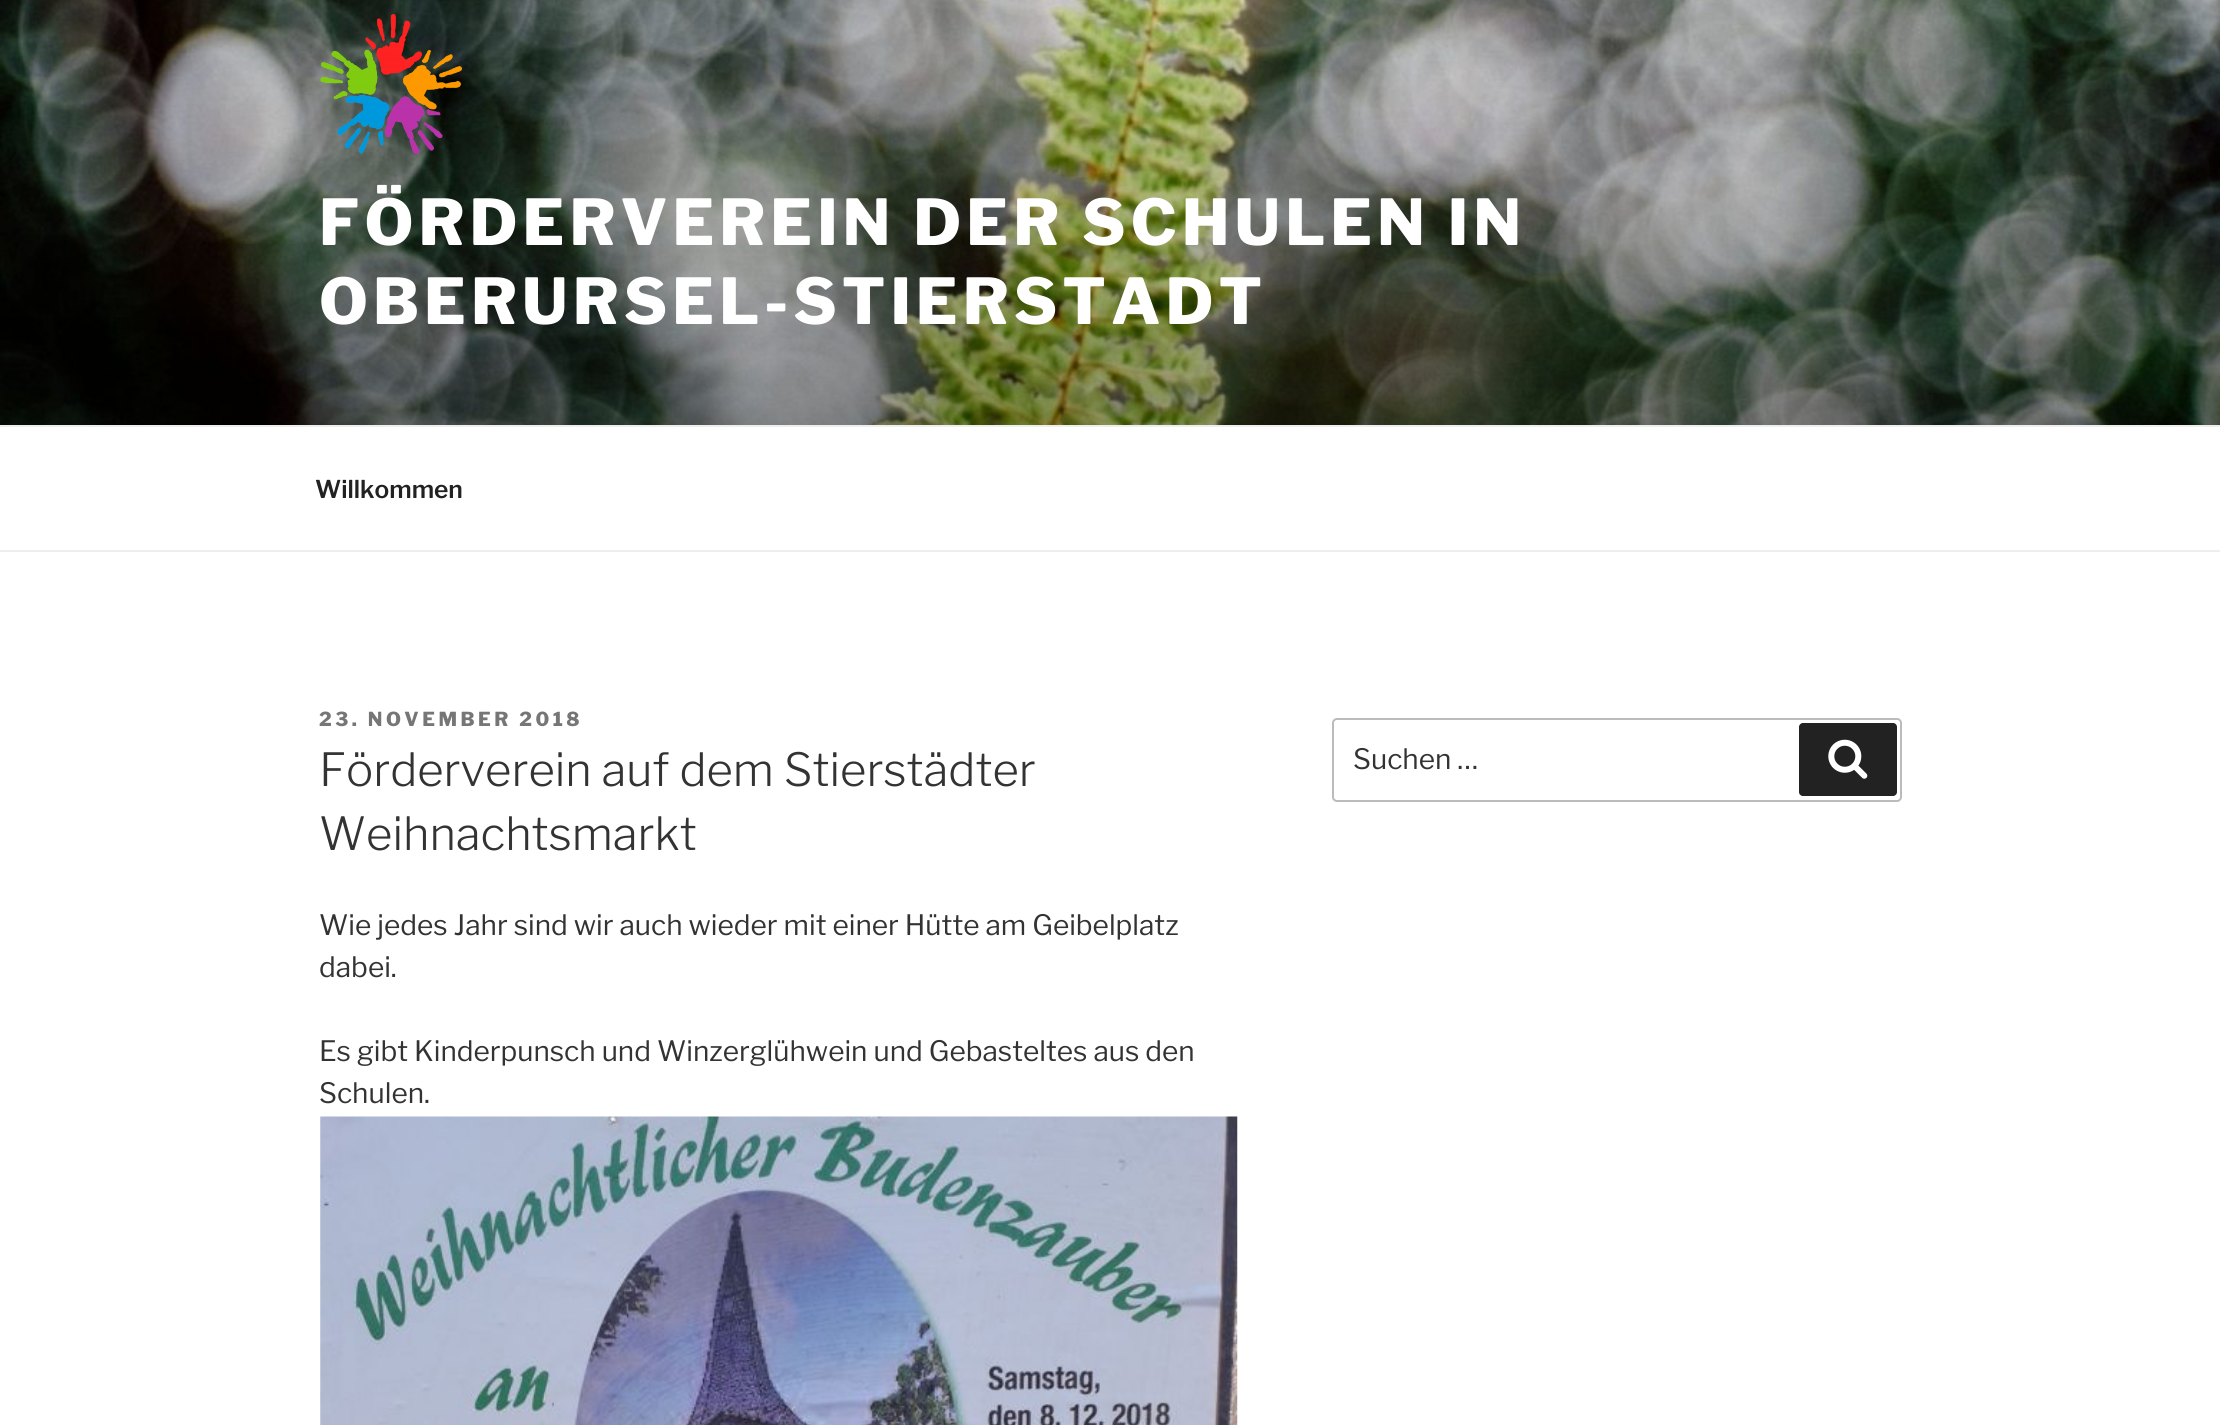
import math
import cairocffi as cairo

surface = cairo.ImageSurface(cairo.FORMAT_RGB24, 2220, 1425)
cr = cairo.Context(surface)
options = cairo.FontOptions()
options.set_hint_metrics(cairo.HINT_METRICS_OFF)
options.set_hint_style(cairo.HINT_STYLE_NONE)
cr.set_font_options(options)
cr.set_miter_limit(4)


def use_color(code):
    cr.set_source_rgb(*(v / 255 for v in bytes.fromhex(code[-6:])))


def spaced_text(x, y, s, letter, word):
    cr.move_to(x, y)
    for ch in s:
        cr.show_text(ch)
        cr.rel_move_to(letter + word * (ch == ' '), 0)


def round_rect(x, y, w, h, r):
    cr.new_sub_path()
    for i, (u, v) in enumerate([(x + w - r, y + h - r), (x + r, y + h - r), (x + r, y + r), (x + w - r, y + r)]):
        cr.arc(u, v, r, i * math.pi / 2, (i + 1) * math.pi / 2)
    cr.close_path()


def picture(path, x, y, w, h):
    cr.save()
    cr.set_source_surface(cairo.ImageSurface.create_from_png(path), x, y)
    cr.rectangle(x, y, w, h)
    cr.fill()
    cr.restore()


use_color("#ffffff")
cr.paint()
picture("img1.png", 0, 0, 2220, 425)
gradient = cairo.LinearGradient(1110, -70, 1110, 551)
gradient.add_color_stop_rgba(0, 0, 0, 0, 0)
gradient.add_color_stop_rgba(0.75, 0, 0, 0, 0.3)
gradient.add_color_stop_rgba(1, 0, 0, 0, 0.3)
cr.set_source(gradient)
cr.rectangle(0, 0, 2220, 425)
cr.fill()
picture("img2.png", 320, 14, 142, 140)
cr.select_font_face("Libre Franklin ExtraBold")
cr.set_font_size(63)
use_color("#ffffff")
spaced_text(319, 245, "FÖRDERVEREIN DER SCHULEN IN", 5.05, 0)
spaced_text(319, 324, "OBERURSEL-STIERSTADT", 5.05, 0)
use_color("#eeeeee")
cr.rectangle(0, 425, 2220, 2)
cr.fill()
cr.rectangle(0, 550, 2220, 2)
cr.fill()
cr.select_font_face("Libre Franklin SemiBold")
cr.set_font_size(24.5)
use_color("#222222")
cr.move_to(315, 498)
cr.show_text("Willkommen")
cr.select_font_face("Libre Franklin ExtraBold")
cr.set_font_size(19.25)
use_color("#767676")
spaced_text(319, 726, "23. NOVEMBER 2018", 3.5, 0)
cr.select_font_face("Libre Franklin Light")
cr.set_font_size(45.5)
use_color("#333333")
cr.move_to(319, 786)
cr.show_text("Förderverein auf dem Stierstädter")
cr.move_to(319, 850)
cr.show_text("Weihnachtsmarkt")
cr.select_font_face("Libre Franklin")
cr.set_font_size(28)
cr.move_to(319, 935)
cr.show_text("Wie jedes Jahr sind wir auch wieder mit einer Hütte am Geibelplatz")
cr.move_to(319, 977)
cr.show_text("dabei.")
cr.move_to(319, 1061)
cr.show_text("Es gibt Kinderpunsch und Winzerglühwein und Gebasteltes aus den")
cr.move_to(319, 1103)
cr.show_text("Schulen.")
picture("img3.png", 320, 1116, 918, 309)
round_rect(1333, 719, 568, 82, 4)
use_color("#bbbbbb")
cr.stroke()
use_color("#333333")
cr.move_to(1353, 769)
cr.show_text("Suchen …")
use_color("#222222")
round_rect(1799, 723, 98, 73, 4)
cr.fill()
picture("img4.png", 1828, 739, 40, 40)
surface.write_to_png("result.png")
